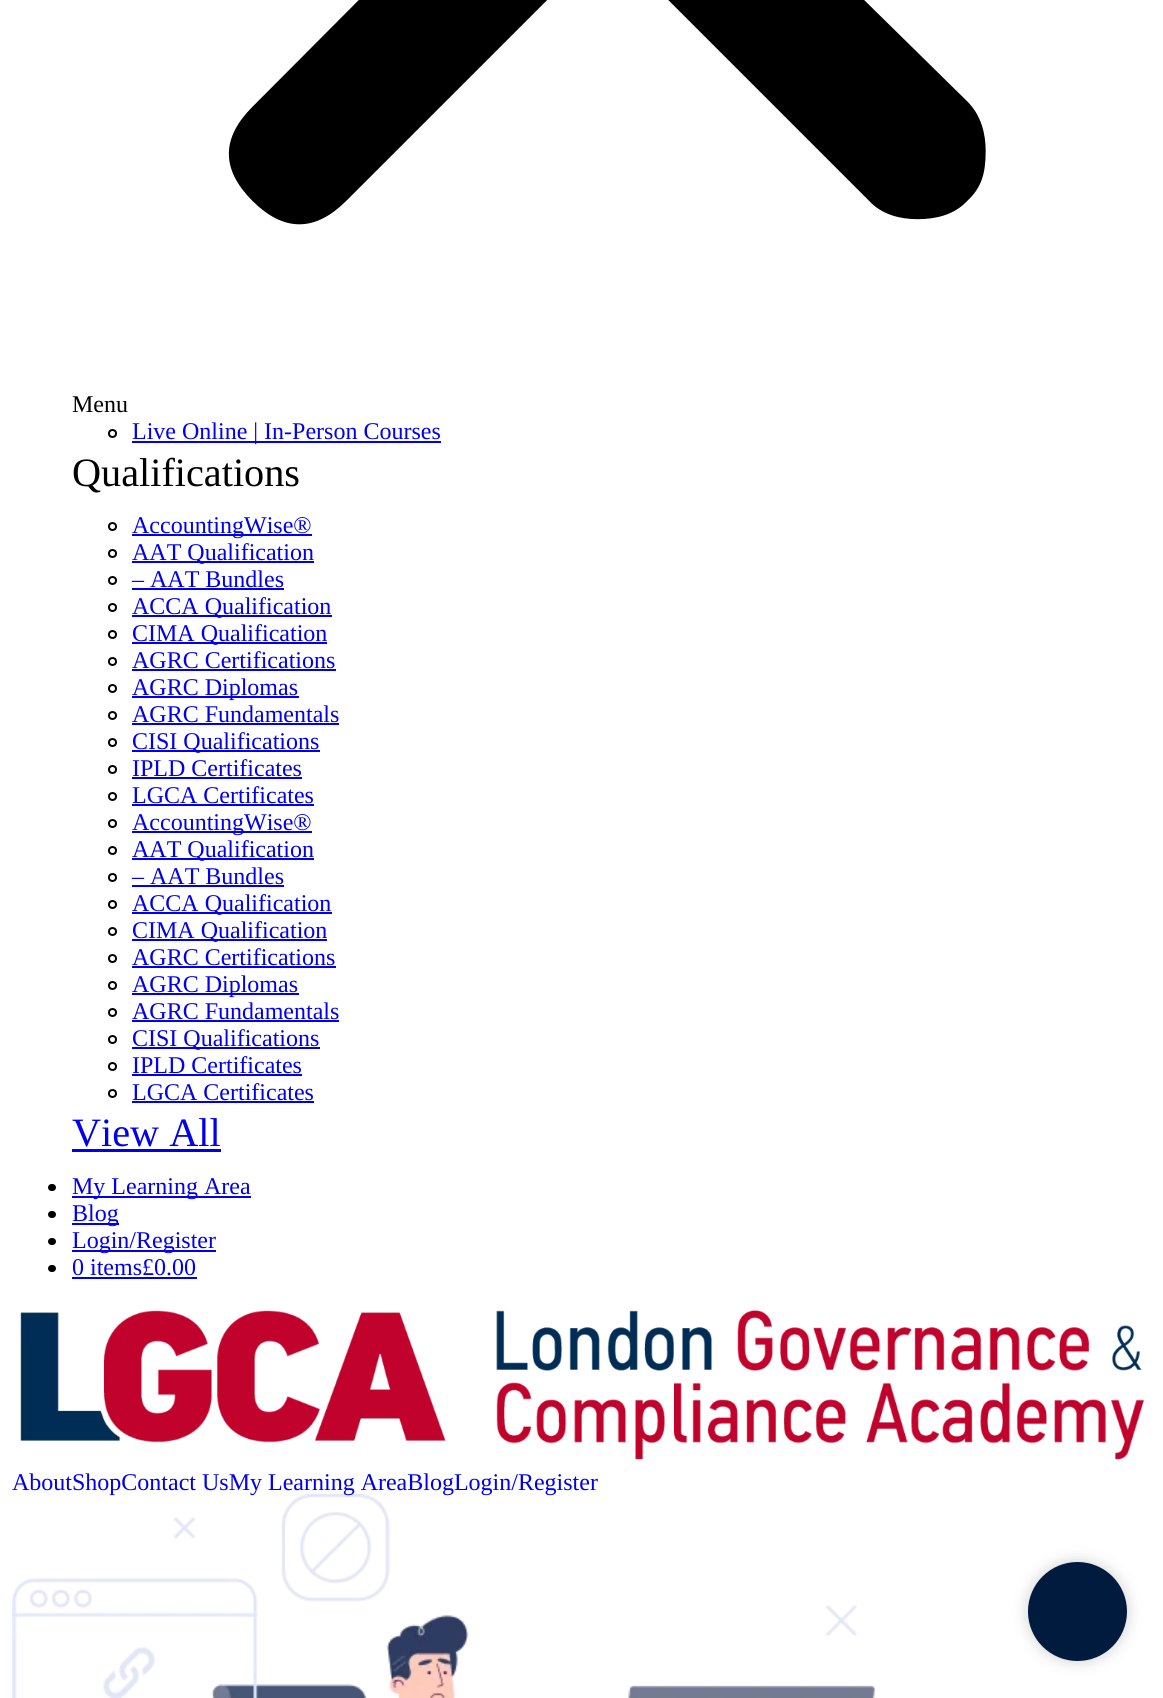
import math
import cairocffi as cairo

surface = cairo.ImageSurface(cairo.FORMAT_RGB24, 1163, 1698)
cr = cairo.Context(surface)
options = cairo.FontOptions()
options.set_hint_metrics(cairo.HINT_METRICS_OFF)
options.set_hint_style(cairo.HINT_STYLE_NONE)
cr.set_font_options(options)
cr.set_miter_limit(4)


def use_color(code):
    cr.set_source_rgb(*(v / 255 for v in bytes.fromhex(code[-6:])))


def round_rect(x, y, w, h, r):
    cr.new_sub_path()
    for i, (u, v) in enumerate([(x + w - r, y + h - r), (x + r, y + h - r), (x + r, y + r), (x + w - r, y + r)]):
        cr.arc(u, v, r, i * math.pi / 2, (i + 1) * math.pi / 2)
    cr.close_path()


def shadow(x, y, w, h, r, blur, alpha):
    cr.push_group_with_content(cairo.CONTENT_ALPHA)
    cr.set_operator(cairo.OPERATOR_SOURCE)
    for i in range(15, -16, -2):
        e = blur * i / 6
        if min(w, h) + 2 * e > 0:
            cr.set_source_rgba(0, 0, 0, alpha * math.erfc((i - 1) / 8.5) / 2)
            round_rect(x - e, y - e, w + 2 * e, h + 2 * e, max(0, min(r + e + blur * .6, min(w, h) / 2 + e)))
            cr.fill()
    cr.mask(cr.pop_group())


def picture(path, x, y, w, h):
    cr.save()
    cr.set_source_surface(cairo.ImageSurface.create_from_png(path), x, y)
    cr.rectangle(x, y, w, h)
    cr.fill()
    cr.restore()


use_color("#ffffff")
cr.paint()
picture("img1.png", 228, 0, 758, 225)
cr.select_font_face("Liberation Serif")
cr.set_font_size(24)
use_color("#000000")
cr.move_to(72, 412)
cr.show_text("Menu")
cr.new_path()
cr.arc(112.5, 433.5, 3.5, 0, 2 * math.pi)
cr.stroke()
use_color("#0000ee")
cr.rectangle(132, 441, 309, 2)
cr.fill()
cr.move_to(132, 439)
cr.show_text("Live Online | In-Person Courses")
cr.set_font_size(40.25)
use_color("#000000")
cr.move_to(72, 486)
cr.show_text("Qualifications")
cr.new_path()
cr.arc(112.5, 526.5, 3.5, 0, 2 * math.pi)
cr.stroke()
use_color("#0000ee")
cr.rectangle(132, 534, 180, 2)
cr.fill()
cr.set_font_size(24)
cr.move_to(132, 533)
cr.show_text("AccountingWise®")
cr.new_path()
cr.arc(112.5, 553.5, 3.5, 0, 2 * math.pi)
use_color("#000000")
cr.stroke()
use_color("#0000ee")
cr.rectangle(132, 561, 182, 2)
cr.fill()
cr.move_to(132, 560)
cr.show_text("AAT Qualification")
cr.new_path()
cr.arc(112.5, 580.5, 3.5, 0, 2 * math.pi)
use_color("#000000")
cr.stroke()
use_color("#0000ee")
cr.move_to(132, 587)
cr.show_text("– AAT Bundles")
cr.rectangle(132, 588, 152, 2)
cr.fill()
cr.arc(112.5, 607.5, 3.5, 0, 2 * math.pi)
use_color("#000000")
cr.stroke()
use_color("#0000ee")
cr.rectangle(132, 615, 200, 2)
cr.fill()
cr.move_to(132, 614)
cr.show_text("ACCA Qualification")
cr.new_path()
cr.arc(112.5, 634.5, 3.5, 0, 2 * math.pi)
use_color("#000000")
cr.stroke()
use_color("#0000ee")
cr.rectangle(132, 642, 195, 2)
cr.fill()
cr.move_to(132, 641)
cr.show_text("CIMA Qualification")
cr.new_path()
cr.arc(112.5, 661.5, 3.5, 0, 2 * math.pi)
use_color("#000000")
cr.stroke()
use_color("#0000ee")
cr.move_to(132, 668)
cr.show_text("AGRC Certifications")
cr.rectangle(132, 669, 204, 2)
cr.fill()
cr.arc(112.5, 688.5, 3.5, 0, 2 * math.pi)
use_color("#000000")
cr.stroke()
use_color("#0000ee")
cr.rectangle(132, 696, 167, 2)
cr.fill()
cr.move_to(132, 695)
cr.show_text("AGRC Diplomas")
cr.new_path()
cr.arc(112.5, 715.5, 3.5, 0, 2 * math.pi)
use_color("#000000")
cr.stroke()
use_color("#0000ee")
cr.move_to(132, 722)
cr.show_text("AGRC Fundamentals")
cr.rectangle(132, 723, 207, 2)
cr.fill()
cr.arc(112.5, 742.5, 3.5, 0, 2 * math.pi)
use_color("#000000")
cr.stroke()
use_color("#0000ee")
cr.rectangle(132, 750, 188, 2)
cr.fill()
cr.move_to(132, 749)
cr.show_text("CISI Qualifications")
cr.new_path()
cr.arc(112.5, 769.5, 3.5, 0, 2 * math.pi)
use_color("#000000")
cr.stroke()
use_color("#0000ee")
cr.move_to(132, 776)
cr.show_text("IPLD Certificates")
cr.rectangle(132, 777, 170, 2)
cr.fill()
cr.arc(112.5, 796.5, 3.5, 0, 2 * math.pi)
use_color("#000000")
cr.stroke()
use_color("#0000ee")
cr.move_to(132, 803)
cr.show_text("LGCA Certificates")
cr.rectangle(132, 804, 182, 2)
cr.fill()
cr.arc(112.5, 823.5, 3.5, 0, 2 * math.pi)
use_color("#000000")
cr.stroke()
use_color("#0000ee")
cr.rectangle(132, 831, 180, 2)
cr.fill()
cr.move_to(132, 830)
cr.show_text("AccountingWise®")
cr.new_path()
cr.arc(112.5, 850.5, 3.5, 0, 2 * math.pi)
use_color("#000000")
cr.stroke()
use_color("#0000ee")
cr.rectangle(132, 858, 182, 2)
cr.fill()
cr.move_to(132, 857)
cr.show_text("AAT Qualification")
cr.new_path()
cr.arc(112.5, 877.5, 3.5, 0, 2 * math.pi)
use_color("#000000")
cr.stroke()
use_color("#0000ee")
cr.move_to(132, 884)
cr.show_text("– AAT Bundles")
cr.rectangle(132, 885, 152, 2)
cr.fill()
cr.arc(112.5, 904.5, 3.5, 0, 2 * math.pi)
use_color("#000000")
cr.stroke()
use_color("#0000ee")
cr.rectangle(132, 912, 200, 2)
cr.fill()
cr.move_to(132, 911)
cr.show_text("ACCA Qualification")
cr.new_path()
cr.arc(112.5, 931.5, 3.5, 0, 2 * math.pi)
use_color("#000000")
cr.stroke()
use_color("#0000ee")
cr.rectangle(132, 939, 195, 2)
cr.fill()
cr.move_to(132, 938)
cr.show_text("CIMA Qualification")
cr.new_path()
cr.arc(112.5, 958.5, 3.5, 0, 2 * math.pi)
use_color("#000000")
cr.stroke()
use_color("#0000ee")
cr.move_to(132, 965)
cr.show_text("AGRC Certifications")
cr.rectangle(132, 966, 204, 2)
cr.fill()
cr.arc(112.5, 985.5, 3.5, 0, 2 * math.pi)
use_color("#000000")
cr.stroke()
use_color("#0000ee")
cr.rectangle(132, 993, 167, 2)
cr.fill()
cr.move_to(132, 992)
cr.show_text("AGRC Diplomas")
cr.new_path()
cr.arc(112.5, 1012.5, 3.5, 0, 2 * math.pi)
use_color("#000000")
cr.stroke()
use_color("#0000ee")
cr.move_to(132, 1019)
cr.show_text("AGRC Fundamentals")
cr.rectangle(132, 1020, 207, 2)
cr.fill()
cr.arc(112.5, 1039.5, 3.5, 0, 2 * math.pi)
use_color("#000000")
cr.stroke()
use_color("#0000ee")
cr.rectangle(132, 1047, 188, 2)
cr.fill()
cr.move_to(132, 1046)
cr.show_text("CISI Qualifications")
cr.new_path()
cr.arc(112.5, 1066.5, 3.5, 0, 2 * math.pi)
use_color("#000000")
cr.stroke()
use_color("#0000ee")
cr.move_to(132, 1073)
cr.show_text("IPLD Certificates")
cr.rectangle(132, 1074, 170, 2)
cr.fill()
cr.arc(112.5, 1093.5, 3.5, 0, 2 * math.pi)
use_color("#000000")
cr.stroke()
use_color("#0000ee")
cr.move_to(132, 1100)
cr.show_text("LGCA Certificates")
cr.rectangle(132, 1101, 182, 2)
cr.fill()
cr.set_font_size(40.25)
cr.move_to(72, 1146)
cr.show_text("View All")
cr.rectangle(72, 1149, 149, 3)
cr.fill()
use_color("#000000")
round_rect(48, 1184, 8, 7, 3.5)
cr.fill()
use_color("#0000ee")
cr.rectangle(72, 1196, 179, 2)
cr.fill()
cr.set_font_size(24)
cr.move_to(72, 1194)
cr.show_text("My Learning Area")
use_color("#000000")
round_rect(48, 1211, 8, 7, 3.5)
cr.fill()
use_color("#0000ee")
cr.rectangle(72, 1223, 47, 2)
cr.fill()
cr.move_to(72, 1221)
cr.show_text("Blοg")
use_color("#000000")
round_rect(48, 1238, 8, 7, 3.5)
cr.fill()
use_color("#0000ee")
cr.rectangle(72, 1250, 144, 2)
cr.fill()
cr.move_to(72, 1248)
cr.show_text("Login/Register")
use_color("#000000")
round_rect(48, 1265, 8, 7, 3.5)
cr.fill()
use_color("#0000ee")
cr.move_to(72, 1275)
cr.show_text("0 items£0.00")
cr.rectangle(72, 1277, 125, 2)
cr.fill()
picture("img2.png", 20, 1310, 1124, 150)
picture("img3.png", 12, 1494, 863, 204)
cr.move_to(12, 1490)
cr.show_text("AboutShopContact UsMy Learning AreaBlogLogin/Register")
use_color("#000000")
shadow(1028, 1562, 99, 99, 49.5, 7.5, 0.19)
use_color("#001b3d")
cr.arc(1077.5, 1611.5, 49.5, 0, 2 * math.pi)
cr.fill()
surface.write_to_png("result.png")
